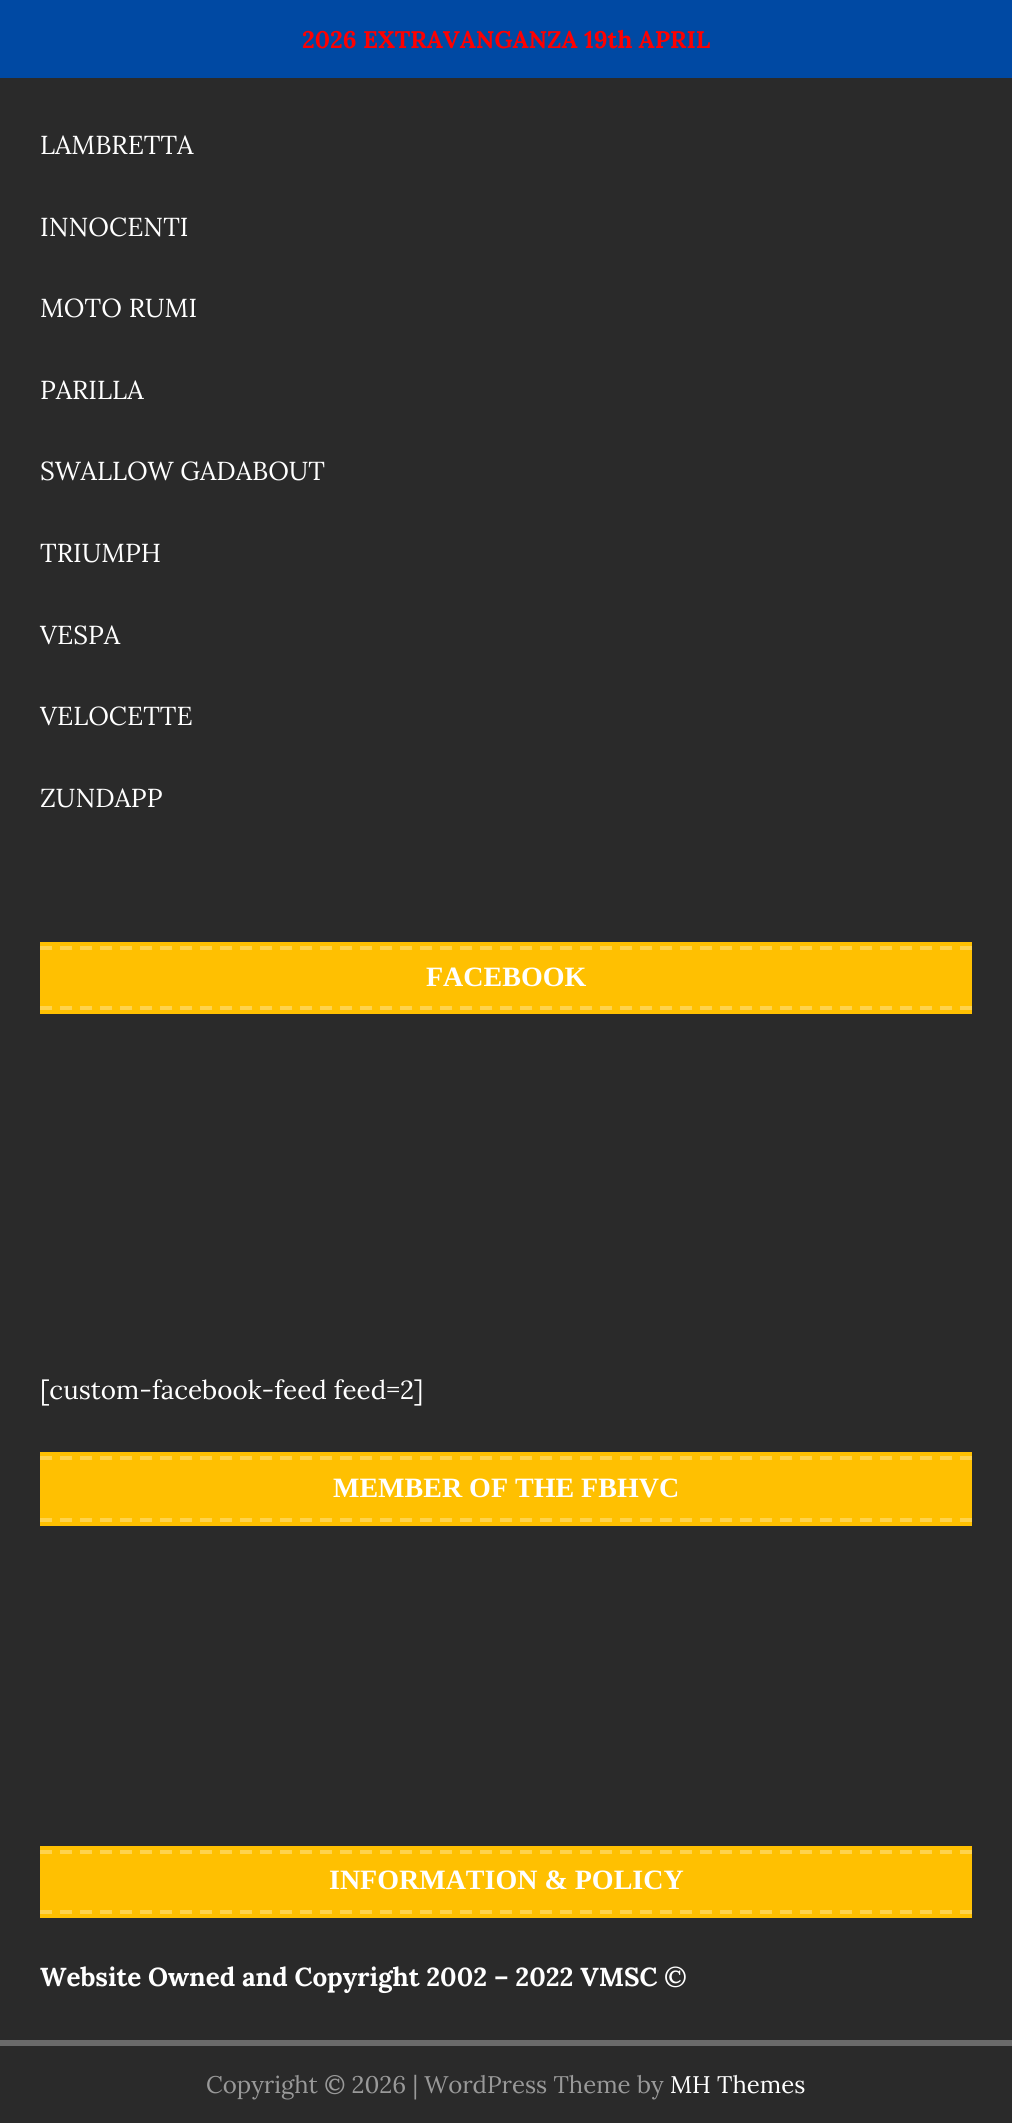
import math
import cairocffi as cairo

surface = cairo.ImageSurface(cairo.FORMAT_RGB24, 1012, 2123)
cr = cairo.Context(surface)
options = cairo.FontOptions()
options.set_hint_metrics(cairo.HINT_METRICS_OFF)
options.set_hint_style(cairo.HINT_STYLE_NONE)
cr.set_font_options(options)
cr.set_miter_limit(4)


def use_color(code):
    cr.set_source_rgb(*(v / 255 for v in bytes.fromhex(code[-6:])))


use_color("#2a2a2a")
cr.paint()
use_color("#0049a3")
cr.rectangle(0, 0, 1012, 78)
cr.fill()
cr.select_font_face("Lora", cairo.FONT_SLANT_NORMAL, cairo.FONT_WEIGHT_BOLD)
cr.set_font_size(24)
use_color("#ff0000")
cr.move_to(302, 48)
cr.show_text("2026 EXTRAVANGANZA 19th APRIL")
cr.select_font_face("Lora")
cr.set_font_size(26)
use_color("#ffffff")
cr.move_to(40, 154)
cr.show_text("LAMBRETTA")
cr.move_to(40, 236)
cr.show_text("INNOCENTI")
cr.move_to(40, 317)
cr.show_text("MOTO RUMI")
cr.move_to(40, 399)
cr.show_text("PARILLA")
cr.move_to(40, 480)
cr.show_text("SWALLOW GADABOUT")
cr.move_to(40, 562)
cr.show_text("TRIUMPH")
cr.move_to(40, 644)
cr.show_text("VESPA")
cr.move_to(40, 725)
cr.show_text("VELOCETTE")
cr.move_to(40, 807)
cr.show_text("ZUNDAPP")
use_color("#ffc001")
cr.rectangle(40, 942, 932, 72)
cr.fill()
cr.new_path()
cr.move_to(40, 948)
cr.line_to(972, 948)
use_color("#ffd34d")
cr.set_line_width(4)
cr.set_dash([12, 8])
cr.stroke()
cr.new_path()
cr.move_to(40, 1008)
cr.line_to(972, 1008)
cr.stroke()
cr.select_font_face("Liberation Serif", cairo.FONT_SLANT_NORMAL, cairo.FONT_WEIGHT_BOLD)
cr.set_font_size(28)
use_color("#ffffff")
cr.move_to(426, 986)
cr.show_text("FACEBOOK")
cr.select_font_face("Lora")
cr.set_font_size(26)
cr.move_to(40, 1399)
cr.show_text("[custom-facebook-feed feed=2]")
use_color("#ffc001")
cr.rectangle(40, 1452, 932, 74)
cr.fill()
cr.new_path()
cr.move_to(40, 1458)
cr.line_to(972, 1458)
use_color("#ffd34d")
cr.stroke()
cr.new_path()
cr.move_to(40, 1520)
cr.line_to(972, 1520)
cr.stroke()
cr.select_font_face("Liberation Serif", cairo.FONT_SLANT_NORMAL, cairo.FONT_WEIGHT_BOLD)
cr.set_font_size(28)
use_color("#ffffff")
cr.move_to(333, 1497)
cr.show_text("MEMBER OF THE FBHVC")
use_color("#ffc001")
cr.rectangle(40, 1846, 932, 72)
cr.fill()
cr.new_path()
cr.move_to(40, 1852)
cr.line_to(972, 1852)
use_color("#ffd34d")
cr.stroke()
cr.new_path()
cr.move_to(40, 1912)
cr.line_to(972, 1912)
cr.stroke()
use_color("#ffffff")
cr.move_to(329, 1889)
cr.show_text("INFORMATION & POLICY")
cr.select_font_face("Lora", cairo.FONT_SLANT_NORMAL, cairo.FONT_WEIGHT_BOLD)
cr.set_font_size(26)
cr.move_to(40, 1986)
cr.show_text("Website Owned and Copyright 2002 – 2022 VMSC")
cr.select_font_face("Lora")
cr.move_to(664, 1986)
cr.show_text("©")
use_color("#6a6a6a")
cr.rectangle(0, 2040, 1012, 6)
cr.fill()
cr.set_font_size(24)
use_color("#999999")
cr.move_to(206, 2093)
cr.show_text("Copyright © 2026 | WordPress Theme by")
use_color("#ffffff")
cr.move_to(670, 2093)
cr.show_text("MH Themes")
surface.write_to_png("result.png")
